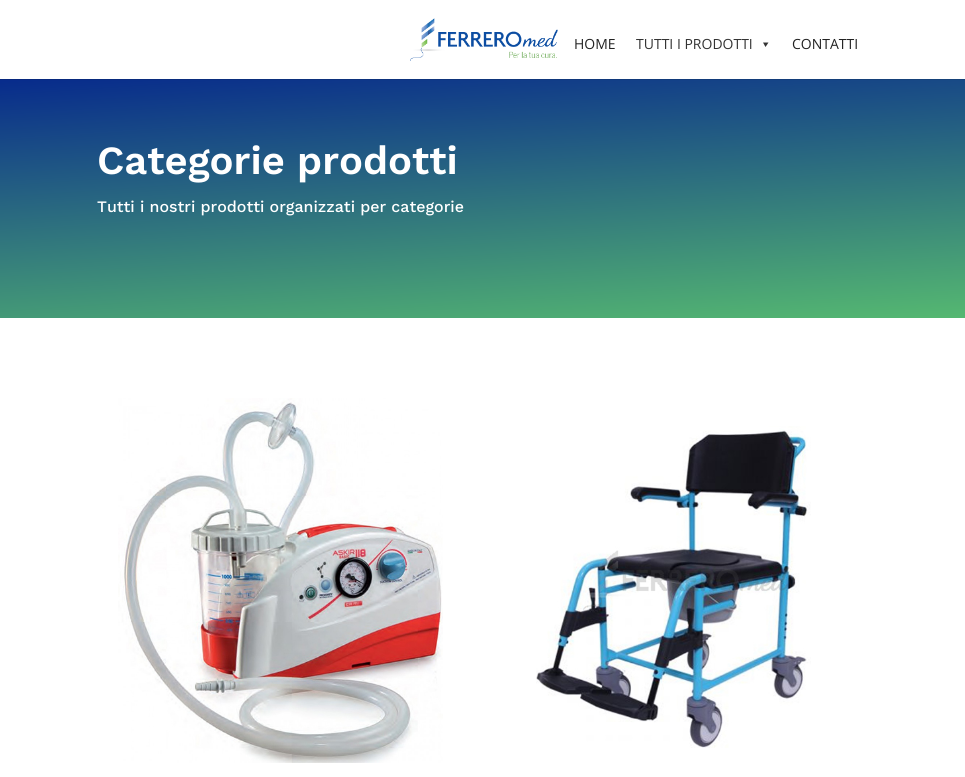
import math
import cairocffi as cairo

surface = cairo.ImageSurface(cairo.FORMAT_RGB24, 965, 777)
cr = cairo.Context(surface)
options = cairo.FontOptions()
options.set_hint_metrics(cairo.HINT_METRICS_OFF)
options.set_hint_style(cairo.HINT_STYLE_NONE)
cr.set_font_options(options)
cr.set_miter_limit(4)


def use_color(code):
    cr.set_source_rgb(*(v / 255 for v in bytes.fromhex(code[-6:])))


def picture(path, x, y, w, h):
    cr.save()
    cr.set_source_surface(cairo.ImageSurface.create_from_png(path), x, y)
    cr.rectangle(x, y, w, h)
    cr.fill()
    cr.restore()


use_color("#ffffff")
cr.paint()
picture("img1.png", 410, 18, 148, 43)
cr.select_font_face("Open Sans")
cr.set_font_size(14)
use_color("#222222")
cr.move_to(574, 49)
cr.show_text("HOME")
use_color("#333333")
cr.move_to(636, 49)
cr.show_text("TUTTI I PRODOTTI")
cr.new_path()
cr.move_to(768.5, 42.5)
cr.line_to(765.5, 47)
cr.line_to(763, 42.5)
cr.close_path()
cr.fill()
use_color("#222222")
cr.move_to(792, 49)
cr.show_text("CONTATTI")
gradient = cairo.LinearGradient(472, 45, 493, 351)
gradient.add_color_stop_rgba(0, 0.027, 0.165, 0.549, 1)
gradient.add_color_stop_rgba(1, 0.333, 0.722, 0.443, 1)
cr.set_source(gradient)
cr.rectangle(0, 80, 965, 238)
cr.fill()
gradient = cairo.LinearGradient(472, 45, 493, 351)
gradient.add_color_stop_rgba(0, 0.024, 0.149, 0.494, 1)
gradient.add_color_stop_rgba(1, 0.302, 0.651, 0.4, 1)
cr.set_source(gradient)
cr.rectangle(0, 79, 965, 1)
cr.fill()
cr.select_font_face("Work Sans SemiBold")
cr.set_font_size(40)
use_color("#ffffff")
cr.move_to(97, 174)
cr.show_text("Categorie prodotti")
cr.select_font_face("Work Sans Medium")
cr.set_font_size(16)
cr.move_to(97, 212)
cr.show_text("Tutti i nostri prodotti organizzati per categorie")
picture("img2.png", 118, 398, 325, 365)
picture("img3.png", 536, 426, 275, 322)
surface.write_to_png("result.png")
